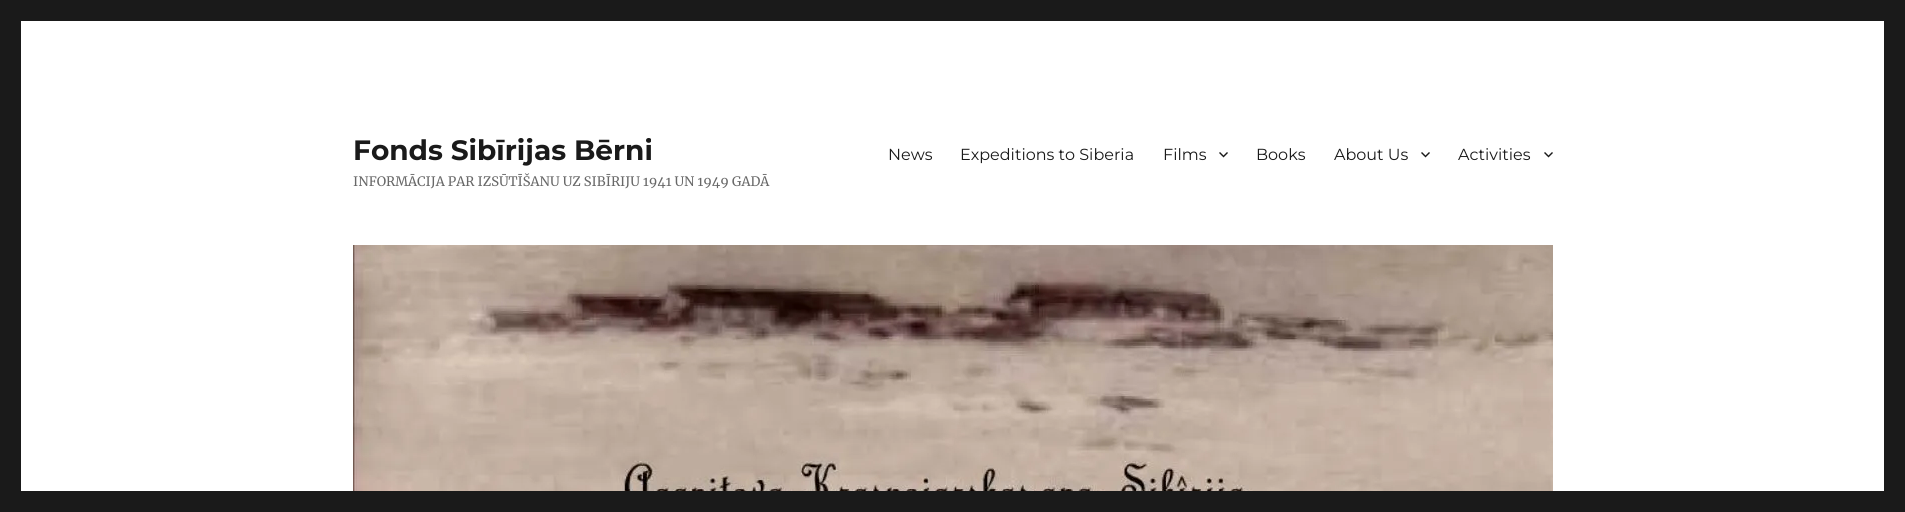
import math
import cairocffi as cairo

surface = cairo.ImageSurface(cairo.FORMAT_RGB24, 1905, 512)
cr = cairo.Context(surface)
options = cairo.FontOptions()
options.set_hint_metrics(cairo.HINT_METRICS_OFF)
options.set_hint_style(cairo.HINT_STYLE_NONE)
cr.set_font_options(options)
cr.set_miter_limit(4)


def use_color(code):
    cr.set_source_rgb(*(v / 255 for v in bytes.fromhex(code[-6:])))


def picture(path, x, y, w, h):
    cr.save()
    cr.set_source_surface(cairo.ImageSurface.create_from_png(path), x, y)
    cr.rectangle(x, y, w, h)
    cr.fill()
    cr.restore()


use_color("#1a1a1a")
cr.paint()
use_color("#ffffff")
cr.rectangle(21, 21, 1863, 470)
cr.fill()
cr.select_font_face("Montserrat Thin")
cr.set_font_size(28)
use_color("#1a1a1a")
cr.move_to(353, 160)
cr.show_text("Fonds Sibīrijas Bērni")
cr.select_font_face("Merriweather")
cr.set_font_size(13)
use_color("#686868")
cr.move_to(353, 186)
cr.show_text("INFORMĀCIJA PAR IZSŪTĪŠANU UZ SIBĪRIJU 1941 UN 1949 GADĀ")
cr.select_font_face("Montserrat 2 Thin")
cr.set_font_size(16)
use_color("#1a1a1a")
cr.move_to(888, 160)
cr.show_text("News")
cr.move_to(960, 160)
cr.show_text("Expeditions to Siberia")
cr.move_to(1163, 160)
cr.show_text("Films")
picture("img1.png", 1219, 152, 9, 6)
cr.move_to(1256, 160)
cr.show_text("Books")
cr.move_to(1334, 160)
cr.show_text("About Us")
picture("img1.png", 1421, 152, 9, 6)
cr.move_to(1458, 160)
cr.show_text("Activities")
picture("img1.png", 1544, 152, 9, 6)
picture("img2.png", 353, 245, 1200, 246)
surface.write_to_png("result.png")
